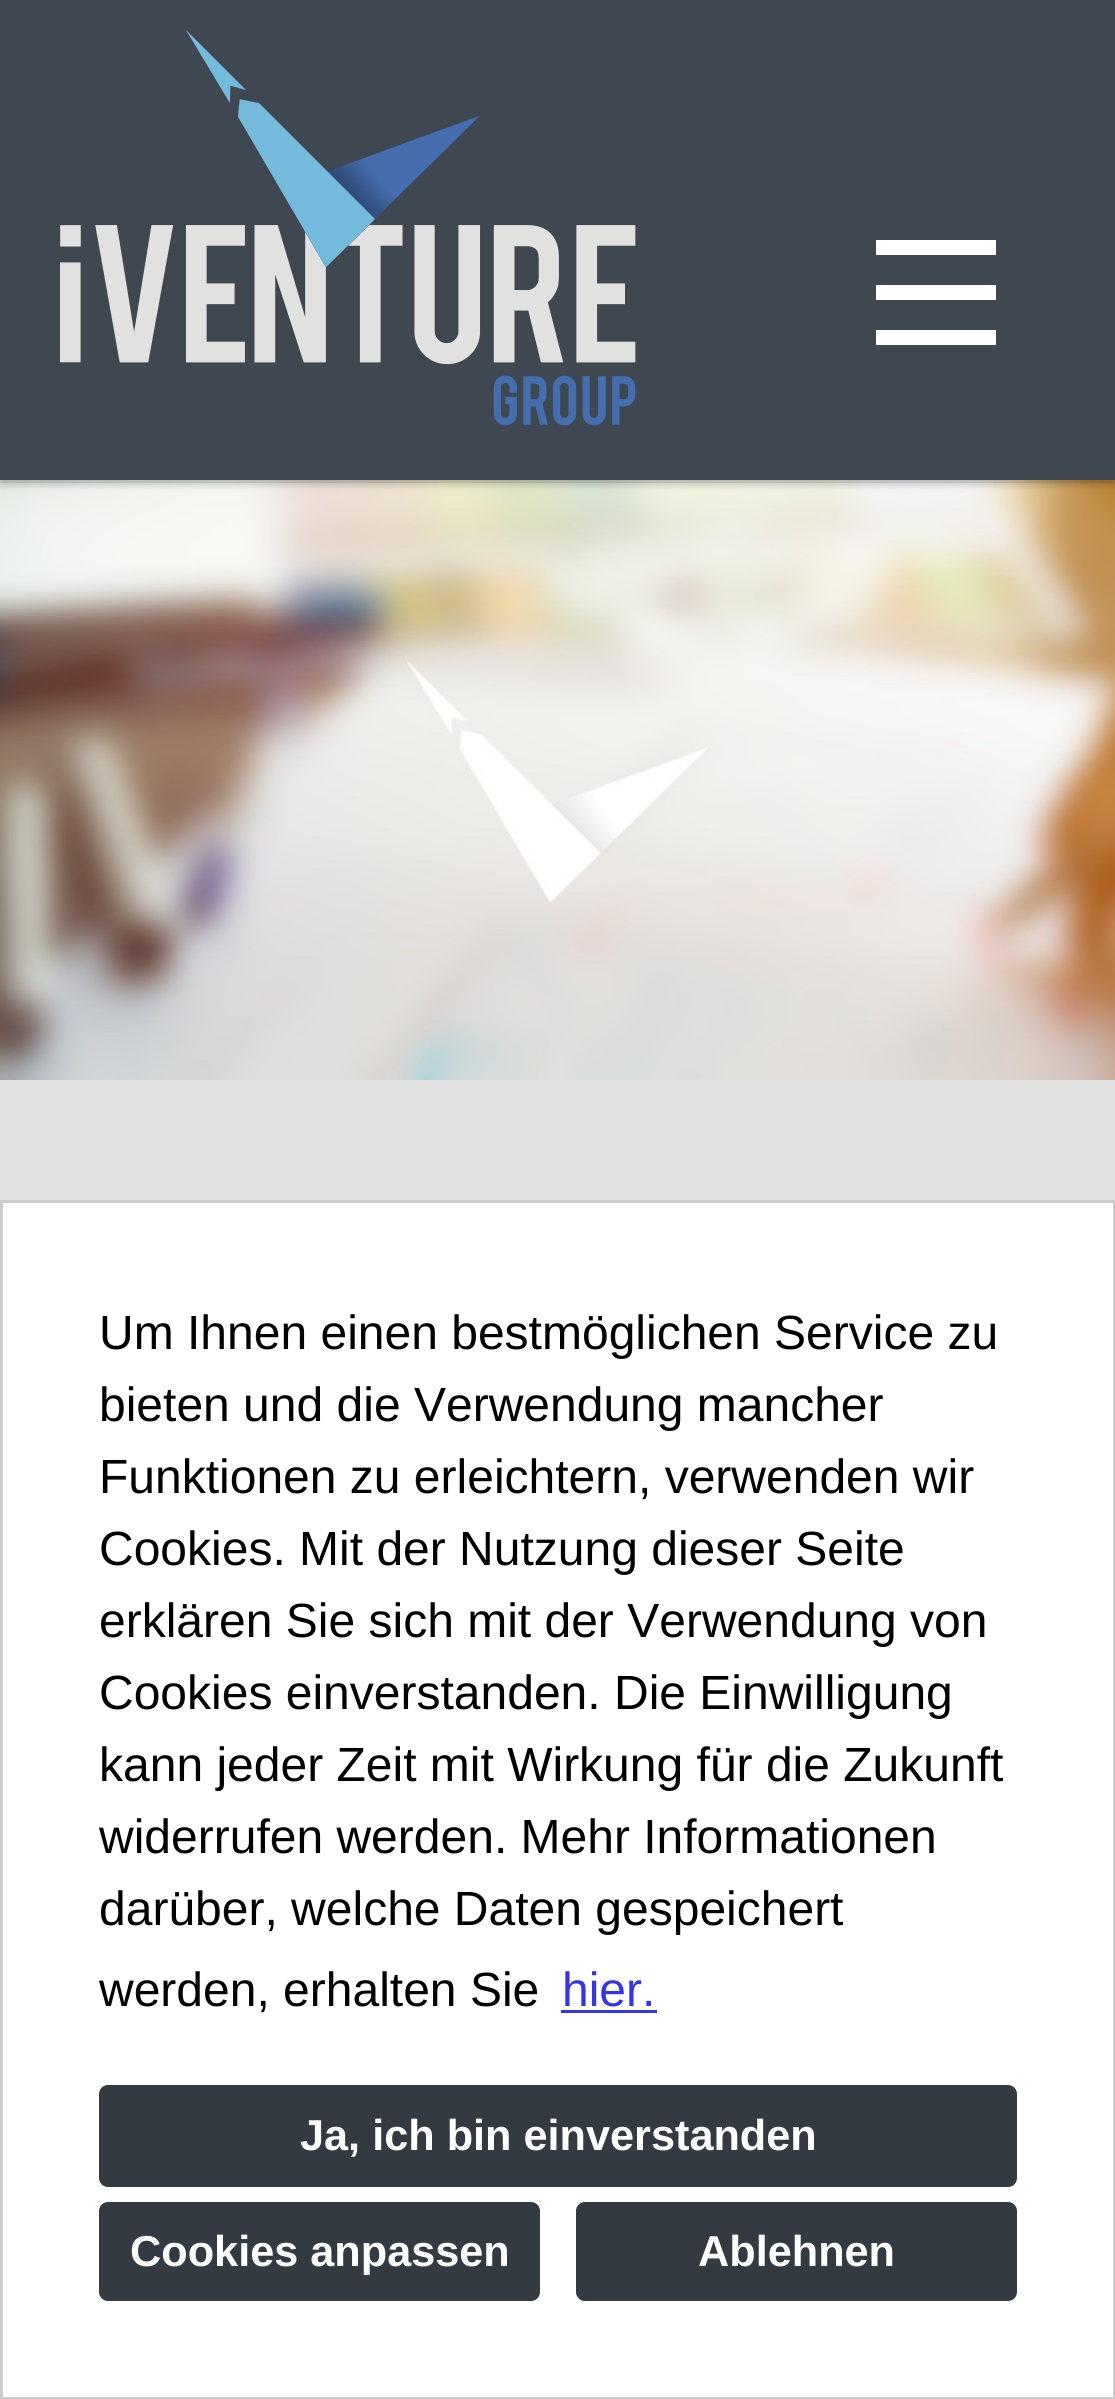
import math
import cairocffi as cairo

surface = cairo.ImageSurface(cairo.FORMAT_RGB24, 1115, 2399)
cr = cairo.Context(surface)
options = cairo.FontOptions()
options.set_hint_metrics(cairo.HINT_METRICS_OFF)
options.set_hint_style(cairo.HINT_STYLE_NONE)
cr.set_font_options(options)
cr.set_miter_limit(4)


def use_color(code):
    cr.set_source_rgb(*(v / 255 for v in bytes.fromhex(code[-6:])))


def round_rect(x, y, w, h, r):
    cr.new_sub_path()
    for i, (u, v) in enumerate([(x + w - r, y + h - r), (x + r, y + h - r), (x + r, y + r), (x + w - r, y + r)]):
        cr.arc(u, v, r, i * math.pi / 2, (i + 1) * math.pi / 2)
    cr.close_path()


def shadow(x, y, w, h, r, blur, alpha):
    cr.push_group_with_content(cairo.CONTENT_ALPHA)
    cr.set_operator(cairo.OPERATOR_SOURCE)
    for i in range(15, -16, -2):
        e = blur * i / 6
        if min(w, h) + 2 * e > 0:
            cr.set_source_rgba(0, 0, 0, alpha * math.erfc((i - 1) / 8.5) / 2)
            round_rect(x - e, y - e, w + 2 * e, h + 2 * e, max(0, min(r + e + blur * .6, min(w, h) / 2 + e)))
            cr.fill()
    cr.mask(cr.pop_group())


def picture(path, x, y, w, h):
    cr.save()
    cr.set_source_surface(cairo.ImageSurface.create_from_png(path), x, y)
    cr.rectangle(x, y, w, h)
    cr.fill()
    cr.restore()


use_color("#e1e1e1")
cr.paint()
picture("img2.png", 0, 480, 1115, 600)
cr.rectangle(-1.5, -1.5, 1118, 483)
cr.set_source_rgba(0, 0, 0, 0.08)
cr.set_line_width(3)
cr.stroke()
use_color("#000000")
shadow(0, 6, 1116, 480, 0, 3, 0.16)
use_color("#3f4750")
cr.rectangle(0, 0, 1115, 480)
cr.fill()
picture("img1.png", 60, 30, 576, 396)
use_color("#ffffff")
cr.rectangle(876, 240, 120, 15)
cr.fill()
cr.rectangle(876, 285, 120, 15)
cr.fill()
cr.rectangle(876, 330, 120, 15)
cr.fill()
cr.rectangle(1.5, 1201.5, 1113, 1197)
cr.fill_preserve()
use_color("#cccccc")
cr.stroke()
cr.select_font_face("Liberation Sans")
cr.set_font_size(48)
use_color("#000000")
cr.move_to(99, 1349)
cr.show_text("Um Ihnen einen bestmöglichen Service zu")
cr.move_to(99, 1421)
cr.show_text("bieten und die Verwendung mancher")
cr.move_to(99, 1493)
cr.show_text("Funktionen zu erleichtern, verwenden wir")
cr.move_to(99, 1565)
cr.show_text("Cookies. Mit der Nutzung dieser Seite")
cr.move_to(99, 1637)
cr.show_text("erklären Sie sich mit der Verwendung von")
cr.move_to(99, 1709)
cr.show_text("Cookies einverstanden. Die Einwilligung")
cr.move_to(99, 1781)
cr.show_text("kann jeder Zeit mit Wirkung für die Zukunft")
cr.move_to(99, 1853)
cr.show_text("widerrufen werden. Mehr Informationen")
cr.move_to(99, 1925)
cr.show_text("darüber, welche Daten gespeichert")
cr.move_to(99, 2006)
cr.show_text("werden, erhalten Sie")
use_color("#3333f1")
cr.move_to(562, 2006)
cr.show_text("hier.")
cr.rectangle(561, 2010, 96, 3)
cr.fill()
use_color("#333a41")
round_rect(99, 2085, 918, 102, 9)
cr.fill()
cr.select_font_face("Liberation Sans", cairo.FONT_SLANT_NORMAL, cairo.FONT_WEIGHT_BOLD)
cr.set_font_size(43.25)
use_color("#ffffff")
cr.move_to(300, 2150)
cr.show_text("Ja, ich bin einverstanden")
use_color("#333a41")
round_rect(99, 2202, 441, 99, 9)
cr.fill()
use_color("#ffffff")
cr.move_to(130, 2266)
cr.show_text("Cookies anpassen")
use_color("#333a41")
round_rect(576, 2202, 441, 99, 9)
cr.fill()
use_color("#ffffff")
cr.move_to(698, 2266)
cr.show_text("Ablehnen")
surface.write_to_png("result.png")
